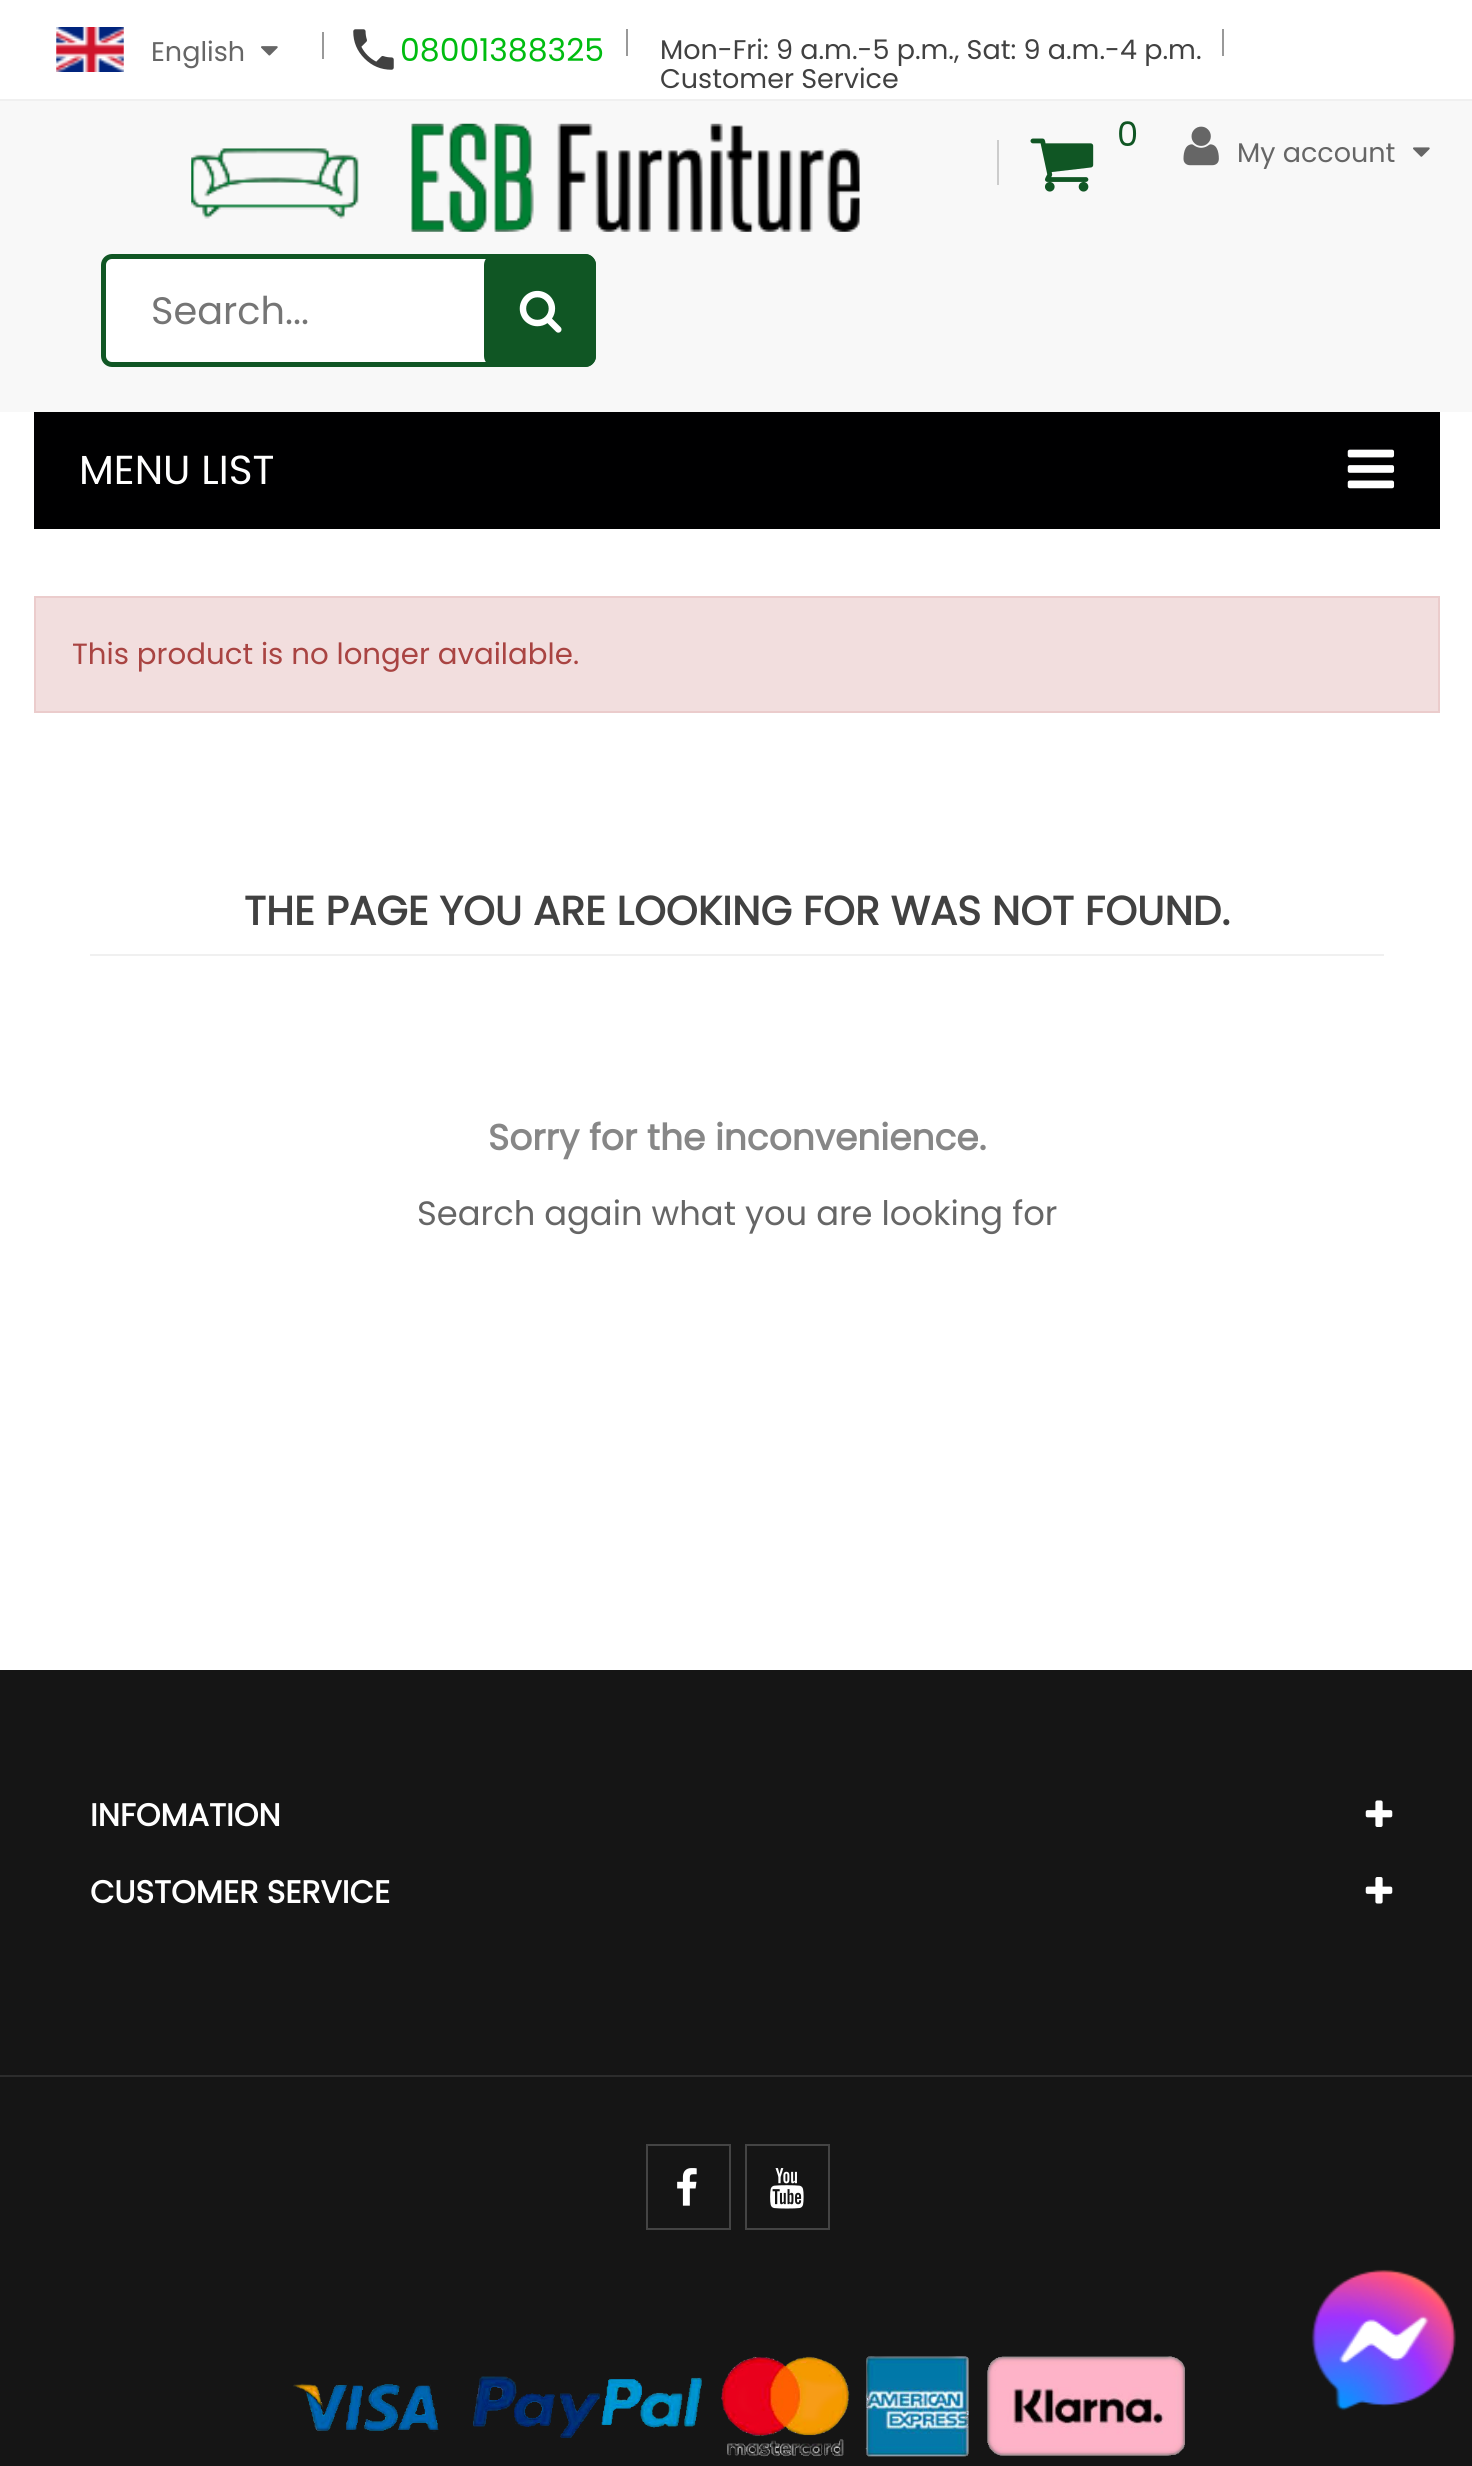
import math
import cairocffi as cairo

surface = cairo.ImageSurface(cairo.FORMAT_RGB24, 1472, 2466)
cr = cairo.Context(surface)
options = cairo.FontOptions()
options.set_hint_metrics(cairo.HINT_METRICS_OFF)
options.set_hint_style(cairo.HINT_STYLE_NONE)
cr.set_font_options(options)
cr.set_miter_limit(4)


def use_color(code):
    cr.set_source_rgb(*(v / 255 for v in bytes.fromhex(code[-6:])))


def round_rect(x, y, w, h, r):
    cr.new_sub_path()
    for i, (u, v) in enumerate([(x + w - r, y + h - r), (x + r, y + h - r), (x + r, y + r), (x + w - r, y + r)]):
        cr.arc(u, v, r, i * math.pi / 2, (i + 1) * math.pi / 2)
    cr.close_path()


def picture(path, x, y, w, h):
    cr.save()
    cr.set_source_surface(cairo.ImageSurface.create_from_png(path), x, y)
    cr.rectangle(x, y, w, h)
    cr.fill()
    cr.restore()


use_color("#ffffff")
cr.paint()
use_color("#f8f8f8")
cr.rectangle(0, 101, 1472, 311)
cr.fill()
use_color("#f0f0f0")
cr.rectangle(0, 99, 1472, 2)
cr.fill()
picture("img1.png", 56, 27, 68, 45)
cr.select_font_face("Poppins")
cr.set_font_size(27)
use_color("#666666")
cr.move_to(151, 61)
cr.show_text("English")
picture("img2.png", 261, 46, 17, 10)
use_color("#999999")
cr.rectangle(322, 32, 2, 27)
cr.fill()
picture("img3.png", 353, 29, 41, 41)
cr.set_font_size(31.5)
use_color("#00bc10")
cr.move_to(400, 61)
cr.show_text("08001388325")
use_color("#999999")
cr.rectangle(626, 29, 2, 27)
cr.fill()
cr.set_font_size(27)
use_color("#414141")
cr.move_to(660, 59)
cr.show_text("Mon-Fri: 9 a.m.-5 p.m., Sat: 9 a.m.-4 p.m.")
cr.move_to(660, 88)
cr.show_text("Customer Service")
use_color("#999999")
cr.rectangle(1222, 29, 2, 27)
cr.fill()
picture("img4.png", 1183, 126, 36, 40)
use_color("#666666")
cr.move_to(1237, 162)
cr.show_text("My account")
picture("img5.png", 1413, 147, 17, 10)
cr.set_font_size(33.75)
use_color("#105624")
cr.move_to(1117, 146)
cr.show_text("0")
use_color("#cccccc")
cr.rectangle(997, 140, 2, 45)
cr.fill()
picture("img6.png", 1030, 138, 64, 54)
use_color("#ffffff")
round_rect(103.5, 256.5, 490, 108, 8.5)
cr.fill_preserve()
use_color("#105624")
cr.set_line_width(5)
cr.stroke()
cr.set_font_size(38.25)
use_color("#757575")
cr.move_to(151, 324)
cr.show_text("Search...")
use_color("#105624")
round_rect(484, 254, 112, 113, 11)
cr.fill()
picture("img7.png", 519, 290, 43, 43)
picture("img8.png", 191, 123, 669, 109)
use_color("#000001")
cr.rectangle(34, 412, 1406, 117)
cr.fill()
cr.set_font_size(40.5)
use_color("#ffffff")
cr.move_to(79, 484)
cr.show_text("MENU LIST")
picture("img9.png", 1347, 449, 48, 40)
use_color("#f2dede")
cr.rectangle(35, 597, 1404, 115)
cr.fill_preserve()
use_color("#ebcccc")
cr.set_line_width(2)
cr.stroke()
cr.set_font_size(29.25)
use_color("#a94442")
cr.move_to(72, 664)
cr.show_text("This product is no longer available.")
use_color("#f0f0f0")
cr.rectangle(90, 954, 1294, 2)
cr.fill()
cr.select_font_face("Poppins", cairo.FONT_SLANT_NORMAL, cairo.FONT_WEIGHT_BOLD)
cr.set_font_size(40.5)
use_color("#414141")
cr.move_to(244, 925)
cr.show_text("THE PAGE YOU ARE LOOKING FOR WAS NOT FOUND.")
cr.set_font_size(36)
use_color("#878787")
cr.move_to(488, 1150)
cr.show_text("Sorry for the inconvenience.")
cr.select_font_face("Poppins")
cr.set_font_size(33.75)
use_color("#666666")
cr.move_to(417, 1225)
cr.show_text("Search again what you are looking for")
use_color("#151515")
cr.rectangle(0, 1670, 1472, 796)
cr.fill()
cr.select_font_face("Poppins", cairo.FONT_SLANT_NORMAL, cairo.FONT_WEIGHT_BOLD)
cr.set_font_size(31.5)
use_color("#ffffff")
cr.move_to(90, 1826)
cr.show_text("INFOMATION")
picture("img10.png", 1365, 1800, 28, 27)
cr.move_to(90, 1903)
cr.show_text("CUSTOMER SERVICE")
picture("img11.png", 1365, 1877, 28, 27)
use_color("#2c2c2c")
cr.rectangle(0, 2075, 1472, 2)
cr.fill()
cr.rectangle(647, 2145, 83, 84)
use_color("#444444")
cr.stroke()
picture("img12.png", 677, 2168, 20, 38)
cr.rectangle(746, 2145, 83, 84)
cr.stroke()
picture("img13.png", 770, 2168, 34, 41)
picture("img14.png", 293, 2356, 892, 101)
picture("img15.png", 1311, 2269, 145, 142)
surface.write_to_png("result.png")
